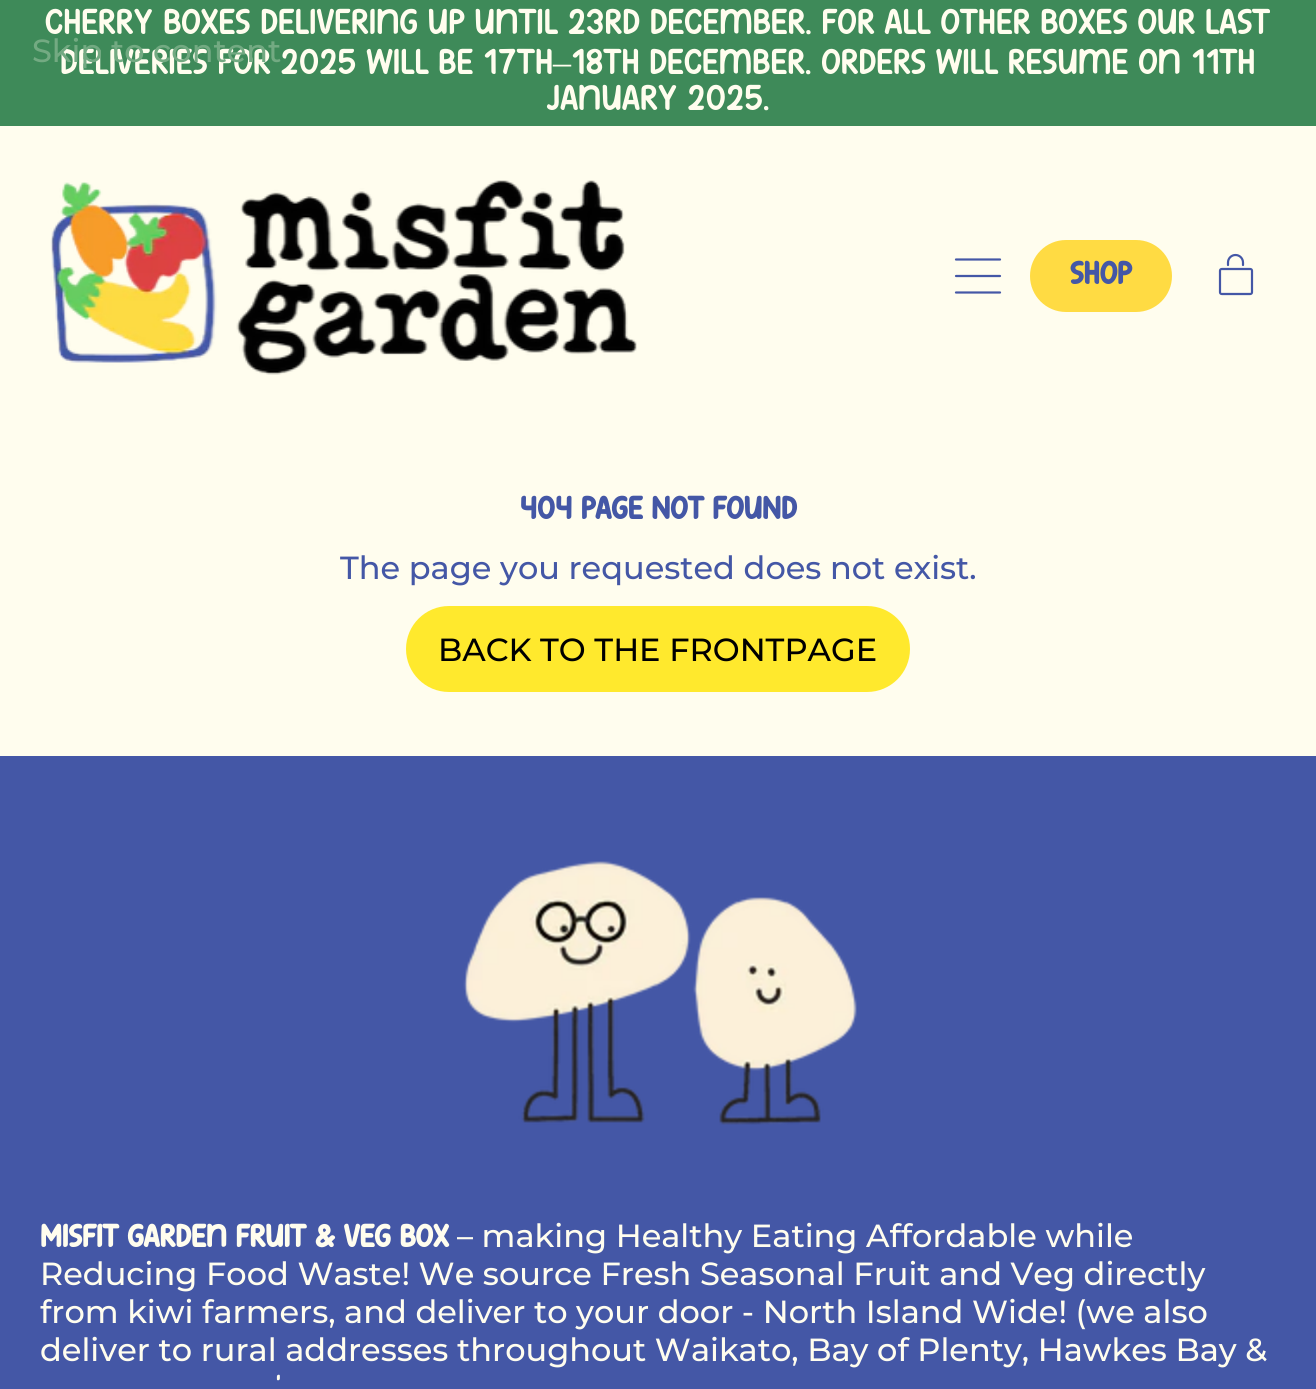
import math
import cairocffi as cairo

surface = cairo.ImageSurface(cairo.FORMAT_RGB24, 1316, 1389)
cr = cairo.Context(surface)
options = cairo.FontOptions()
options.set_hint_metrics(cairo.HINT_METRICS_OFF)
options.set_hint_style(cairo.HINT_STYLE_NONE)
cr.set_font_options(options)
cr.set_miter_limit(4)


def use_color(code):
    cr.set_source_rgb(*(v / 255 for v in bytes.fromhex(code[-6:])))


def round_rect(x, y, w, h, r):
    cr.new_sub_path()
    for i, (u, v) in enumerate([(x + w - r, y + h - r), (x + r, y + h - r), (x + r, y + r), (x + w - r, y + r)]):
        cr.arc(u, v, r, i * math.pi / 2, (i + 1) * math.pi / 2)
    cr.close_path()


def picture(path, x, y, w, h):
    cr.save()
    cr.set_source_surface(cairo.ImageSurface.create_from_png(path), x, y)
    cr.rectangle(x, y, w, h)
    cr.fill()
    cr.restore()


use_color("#fffdee")
cr.paint()
use_color("#3e8a59")
cr.rectangle(0, 0, 1316, 126)
cr.fill()
cr.select_font_face("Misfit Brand")
cr.set_font_size(36)
use_color("#fffdee")
cr.move_to(45, 34)
cr.show_text("CHERRY BOXES Delivering up until 23rd December. FOR ALL OTHER BOXES Our last")
cr.move_to(60, 74)
cr.show_text("deliveries for 2025 will be 17th")
cr.select_font_face("Liberation Serif")
cr.move_to(553, 74)
cr.show_text("–")
cr.select_font_face("Misfit Brand")
cr.move_to(571, 74)
cr.show_text("18th December. Orders will resume on 11th")
cr.move_to(547, 110)
cr.show_text("January 2025.")
cr.select_font_face("Montserrat Medium")
cr.set_font_size(32)
use_color("#73aa82")
cr.move_to(32, 62)
cr.show_text("Skip to content")
picture("img1.png", 50, 180, 587, 195)
cr.new_path()
cr.move_to(1000, 292.5)
cr.line_to(956, 292.5)
cr.move_to(1000, 276)
cr.line_to(956, 276)
cr.move_to(1000, 259.5)
cr.line_to(956, 259.5)
use_color("#4457a6")
cr.set_line_width(2.2)
cr.set_line_cap(cairo.LINE_CAP_ROUND)
cr.set_line_join(cairo.LINE_JOIN_ROUND)
cr.stroke()
use_color("#ffdb43")
round_rect(1030, 240, 142, 72, 36)
cr.fill()
cr.select_font_face("Misfit Brand", cairo.FONT_SLANT_NORMAL, cairo.FONT_WEIGHT_BOLD)
use_color("#4457a6")
cr.move_to(1070, 284)
cr.show_text("Shop")
picture("img2.png", 1218, 253, 36, 43)
cr.move_to(520, 519)
cr.show_text("404 PAGE NOT FOUND")
cr.select_font_face("Montserrat Medium")
cr.move_to(340, 579)
cr.show_text("The page you requested does not exist.")
use_color("#ffe92d")
round_rect(406, 606, 504, 86, 43)
cr.fill()
use_color("#000000")
cr.move_to(438, 661)
cr.show_text("BACK TO THE FRONTPAGE")
use_color("#4457a6")
cr.rectangle(0, 756, 1316, 633)
cr.fill()
picture("img3.png", 463, 861, 394, 264)
cr.select_font_face("Misfit Brand", cairo.FONT_SLANT_NORMAL, cairo.FONT_WEIGHT_BOLD)
use_color("#fffdee")
cr.move_to(40, 1247)
cr.show_text("Misfit Garden Fruit & Veg Box")
cr.select_font_face("Montserrat Medium")
cr.move_to(457, 1247)
cr.show_text("– making Healthy Eating Affordable while")
cr.move_to(40, 1285)
cr.show_text("Reducing Food Waste! We source Fresh Seasonal Fruit and Veg directly")
cr.move_to(40, 1323)
cr.show_text("from kiwi farmers, and deliver to your door - North Island Wide! (we also")
cr.move_to(40, 1361)
cr.show_text("deliver to rural addresses throughout Waikato, Bay of Plenty, Hawkes Bay &")
cr.select_font_face("Misfit Brand", cairo.FONT_SLANT_NORMAL, cairo.FONT_WEIGHT_BOLD)
cr.move_to(276, 1399)
cr.show_text("'")
surface.write_to_png("result.png")
